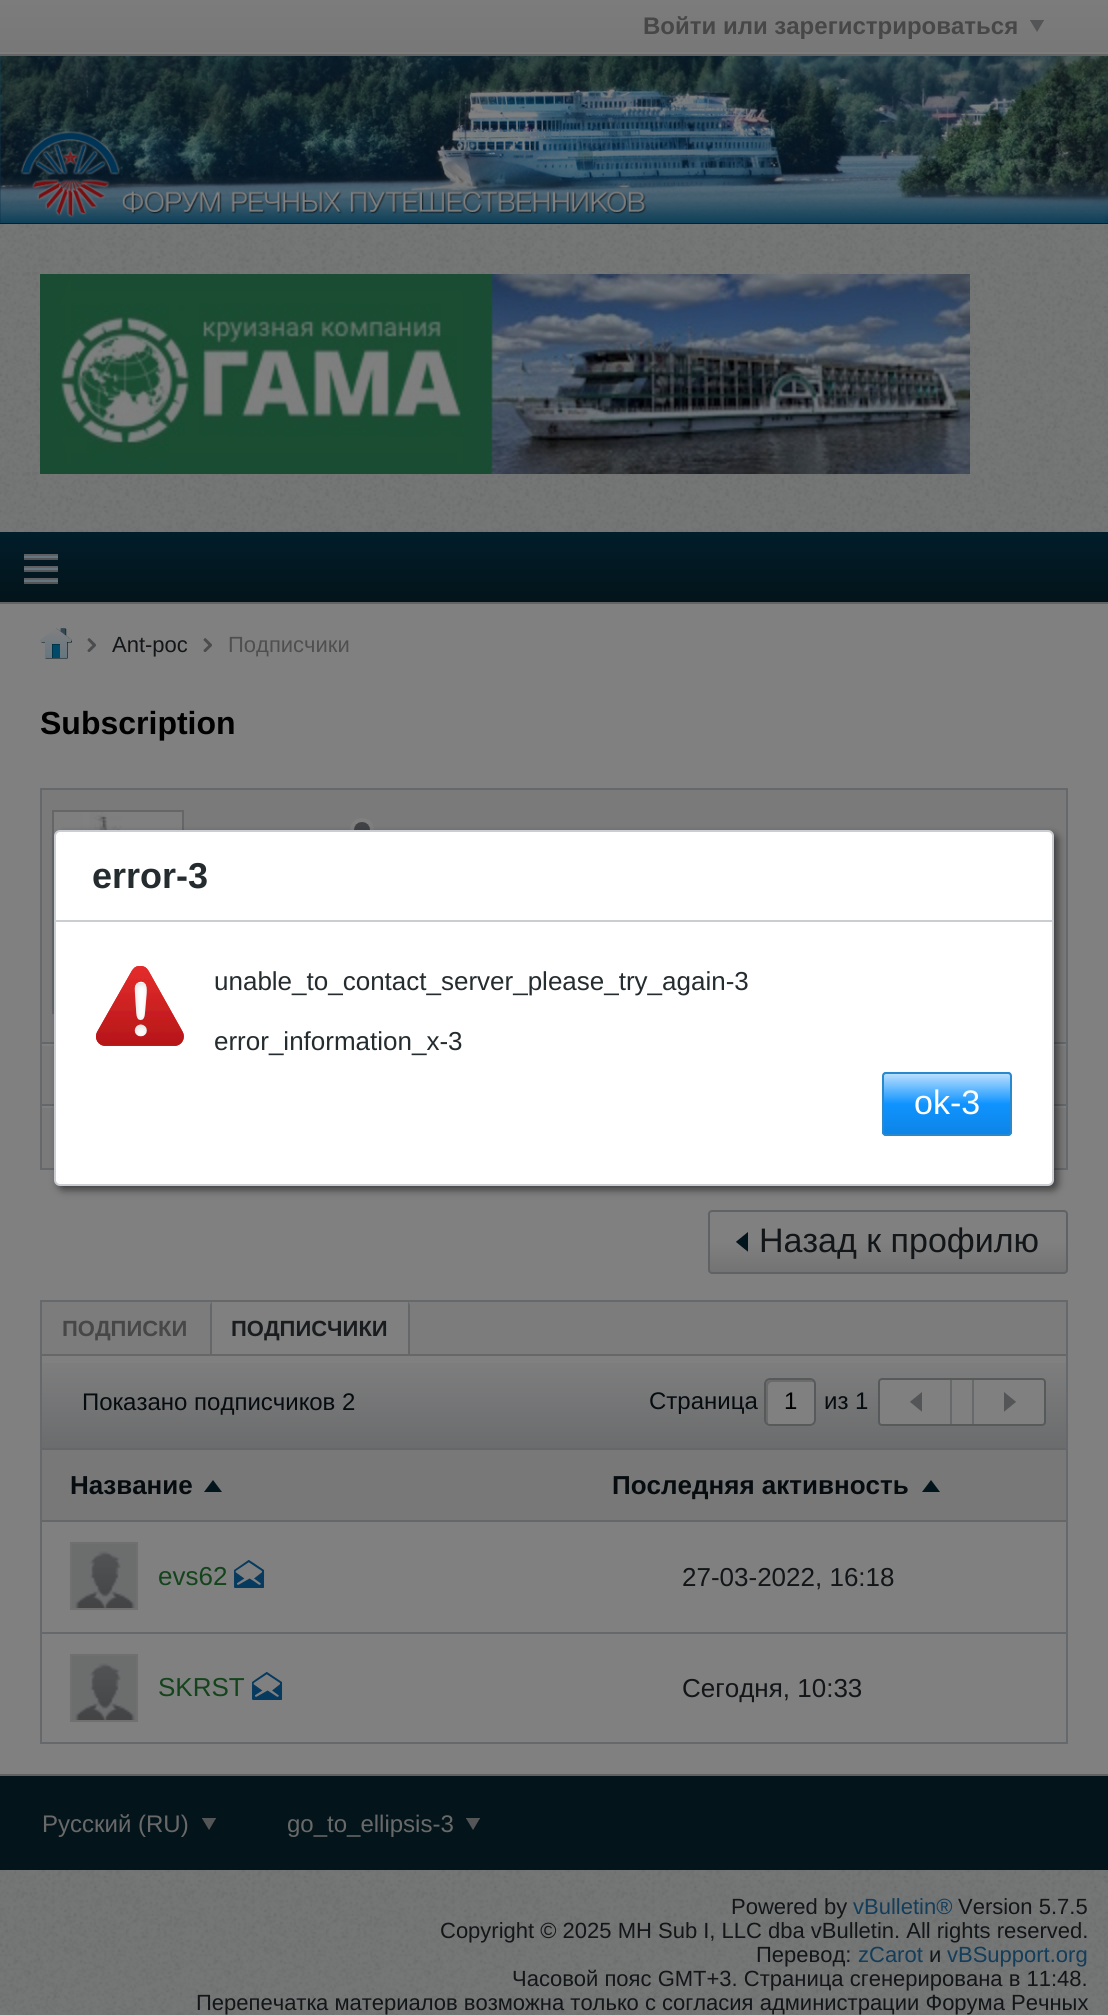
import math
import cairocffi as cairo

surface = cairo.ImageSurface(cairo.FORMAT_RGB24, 1108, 2015)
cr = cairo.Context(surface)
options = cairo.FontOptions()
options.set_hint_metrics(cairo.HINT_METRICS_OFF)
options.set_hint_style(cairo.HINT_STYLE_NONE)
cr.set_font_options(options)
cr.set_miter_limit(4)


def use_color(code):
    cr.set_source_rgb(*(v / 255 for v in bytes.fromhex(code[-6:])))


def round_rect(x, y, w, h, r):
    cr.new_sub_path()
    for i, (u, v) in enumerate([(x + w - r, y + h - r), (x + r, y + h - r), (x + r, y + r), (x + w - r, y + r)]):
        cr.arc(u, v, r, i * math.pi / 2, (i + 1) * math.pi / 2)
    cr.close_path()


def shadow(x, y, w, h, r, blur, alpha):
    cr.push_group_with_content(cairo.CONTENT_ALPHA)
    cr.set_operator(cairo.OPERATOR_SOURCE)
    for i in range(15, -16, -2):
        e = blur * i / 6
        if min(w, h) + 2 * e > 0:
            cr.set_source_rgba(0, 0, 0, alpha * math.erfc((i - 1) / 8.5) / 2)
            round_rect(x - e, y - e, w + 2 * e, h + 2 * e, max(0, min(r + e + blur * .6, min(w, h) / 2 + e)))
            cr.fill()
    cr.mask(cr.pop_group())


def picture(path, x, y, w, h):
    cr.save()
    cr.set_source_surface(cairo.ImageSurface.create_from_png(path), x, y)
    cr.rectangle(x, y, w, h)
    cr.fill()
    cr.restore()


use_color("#757676")
cr.paint()
picture("img1.png", 0, 224, 1108, 1791)
gradient = cairo.LinearGradient(554, 0, 554, 56)
gradient.add_color_stop_rgba(0, 0.486, 0.486, 0.486, 1)
gradient.add_color_stop_rgba(1, 0.471, 0.467, 0.467, 1)
cr.set_source(gradient)
cr.rectangle(0, 0, 1108, 52)
cr.fill()
cr.select_font_face("Liberation Sans", cairo.FONT_SLANT_NORMAL, cairo.FONT_WEIGHT_BOLD)
cr.set_font_size(24)
use_color("#474747")
cr.move_to(643, 34)
cr.show_text("Войти или зарегистрироваться")
picture("img2.png", 1030, 20, 14, 12)
use_color("#7d7d7d")
cr.rectangle(0, 52, 1108, 2)
cr.fill()
use_color("#646465")
cr.rectangle(0, 54, 1108, 2)
cr.fill()
picture("img3.png", 0, 56, 1108, 168)
use_color("#757676")
cr.rectangle(0, 230, 1108, 302)
cr.fill()
picture("img4.png", 0, 230, 1108, 302)
picture("img5.png", 40, 274, 930, 200)
gradient = cairo.LinearGradient(554, 532, 554, 602)
gradient.add_color_stop_rgba(0, 0.004, 0.114, 0.165, 1)
gradient.add_color_stop_rgba(1, 0.012, 0.078, 0.102, 1)
cr.set_source(gradient)
cr.rectangle(0, 532, 1108, 70)
cr.fill()
use_color("#626464")
cr.rectangle(0, 602, 1108, 2)
cr.fill()
picture("img6.png", 24, 554, 34, 30)
use_color("#808080")
cr.rectangle(0, 604, 1108, 1170)
cr.fill()
picture("img7.png", 40, 628, 32, 31)
picture("img8.png", 87, 638, 9, 14)
cr.select_font_face("Liberation Sans")
cr.set_font_size(22)
use_color("#131618")
cr.move_to(112, 652)
cr.show_text("Ant-poc")
picture("img8.png", 203, 638, 9, 14)
use_color("#4f4f4f")
cr.move_to(228, 652)
cr.show_text("Подписчики")
cr.select_font_face("Liberation Sans", cairo.FONT_SLANT_NORMAL, cairo.FONT_WEIGHT_BOLD)
cr.set_font_size(32)
use_color("#000000")
cr.move_to(40, 734)
cr.show_text("Subscription")
cr.rectangle(41, 789, 1026, 380)
use_color("#66696b")
cr.stroke()
use_color("#7a7a7a")
cr.rectangle(42, 790, 1024, 378)
cr.fill()
cr.rectangle(53, 811, 130, 202)
use_color("#646667")
cr.stroke()
picture("img9.png", 54, 812, 128, 24)
picture("img10.png", 350, 818, 24, 12)
use_color("#65686a")
cr.rectangle(42, 1042, 1024, 2)
cr.fill()
use_color("#808080")
cr.rectangle(42, 1044, 1024, 2)
cr.fill()
use_color("#65686a")
cr.rectangle(42, 1104, 1024, 2)
cr.fill()
use_color("#808080")
cr.rectangle(42, 1106, 1024, 2)
cr.fill()
cr.save()
round_rect(708, 1210, 360, 64, 4)
cr.clip()
gradient = cairo.LinearGradient(888, 1272, 888, 1212)
gradient.add_color_stop_rgba(0, 0.451, 0.451, 0.451, 1)
gradient.add_color_stop_rgba(0.5, 0.502, 0.502, 0.502, 1)
gradient.add_color_stop_rgba(1, 0.502, 0.502, 0.502, 1)
cr.set_source(gradient)
cr.rectangle(708, 1212, 360, 60)
cr.fill()
cr.restore()
round_rect(709, 1211, 358, 62, 3)
use_color("#606365")
cr.stroke()
picture("img11.png", 736, 1232, 12, 20)
cr.select_font_face("Liberation Sans")
cr.set_font_size(34)
use_color("#131618")
cr.move_to(759, 1252)
cr.show_text("Назад к профилю")
cr.rectangle(41, 1301, 1026, 442)
use_color("#66696b")
cr.stroke()
use_color("#7c7c7c")
cr.rectangle(42, 1302, 1024, 52)
cr.fill()
cr.select_font_face("Liberation Sans", cairo.FONT_SLANT_NORMAL, cairo.FONT_WEIGHT_BOLD)
cr.set_font_size(22)
use_color("#474747")
cr.move_to(62, 1336)
cr.show_text("ПОДПИСКИ")
use_color("#656769")
cr.set_fill_rule(cairo.FILL_RULE_EVEN_ODD)
cr.new_path()
cr.move_to(216, 1300)
cr.line_to(404, 1300)
cr.curve_to(407, 1300, 410, 1303, 410, 1306)
cr.line_to(410, 1354)
cr.line_to(210, 1354)
cr.line_to(210, 1306)
cr.curve_to(210, 1303, 213, 1300, 216, 1300)
cr.close_path()
cr.move_to(216, 1302)
cr.line_to(404, 1302)
cr.curve_to(406, 1302, 408, 1304, 408, 1306)
cr.line_to(408, 1354)
cr.line_to(212, 1354)
cr.line_to(212, 1306)
cr.curve_to(212, 1304, 214, 1302, 216, 1302)
cr.close_path()
cr.fill()
use_color("#808080")
cr.rectangle(212, 1302, 196, 52)
cr.fill()
use_color("#1a1d1f")
cr.move_to(231, 1336)
cr.show_text("ПОДПИСЧИКИ")
gradient = cairo.LinearGradient(554, 1356, 554, 1448)
gradient.add_color_stop_rgba(0, 0.498, 0.498, 0.502, 1)
gradient.add_color_stop_rgba(1, 0.42, 0.424, 0.427, 1)
cr.set_source(gradient)
cr.rectangle(42, 1363, 1024, 85)
cr.fill()
use_color("#656769")
cr.rectangle(42, 1354, 1024, 2)
cr.fill()
cr.rectangle(42, 1448, 1024, 2)
cr.fill()
cr.select_font_face("Liberation Sans")
cr.set_font_size(24)
use_color("#050b0e")
cr.move_to(82, 1410)
cr.show_text("Показано подписчиков 2")
cr.move_to(649, 1409)
cr.show_text("Страница")
use_color("#808080")
round_rect(764, 1378, 52, 48, 6)
cr.fill()
use_color("#6b6b6b")
cr.set_fill_rule(cairo.FILL_RULE_WINDING)
cr.new_path()
cr.move_to(772, 1382)
cr.line_to(812, 1382)
cr.line_to(814, 1382)
cr.curve_to(813, 1381, 812, 1380, 810, 1380)
cr.line_to(770, 1380)
cr.curve_to(768, 1380, 766, 1382, 766, 1384)
cr.line_to(766, 1420)
cr.curve_to(766, 1422, 767, 1423, 768, 1424)
cr.line_to(768, 1422)
cr.line_to(768, 1386)
cr.curve_to(768, 1384, 770, 1382, 772, 1382)
cr.close_path()
cr.fill()
round_rect(765, 1379, 50, 46, 5)
use_color("#575a5b")
cr.stroke()
use_color("#000000")
cr.move_to(784, 1409)
cr.show_text("1")
use_color("#050b0e")
cr.move_to(824, 1409)
cr.show_text("из 1")
use_color("#808080")
round_rect(879, 1379, 166, 46, 3)
cr.fill_preserve()
use_color("#575a5b")
cr.stroke()
use_color("#67696a")
cr.rectangle(950, 1380, 2, 44)
cr.fill()
picture("img12.png", 910, 1392, 12, 20)
cr.rectangle(972, 1380, 2, 44)
cr.fill()
picture("img13.png", 1004, 1392, 12, 20)
use_color("#787878")
cr.rectangle(42, 1450, 1024, 70)
cr.fill()
use_color("#656769")
cr.rectangle(42, 1520, 1024, 2)
cr.fill()
cr.select_font_face("Liberation Sans", cairo.FONT_SLANT_NORMAL, cairo.FONT_WEIGHT_BOLD)
cr.set_font_size(26)
use_color("#050b0e")
cr.move_to(70, 1494)
cr.show_text("Название")
picture("img14.png", 204, 1480, 18, 12)
cr.move_to(612, 1494)
cr.show_text("Последняя активность")
picture("img14.png", 922, 1480, 18, 12)
cr.rectangle(71, 1543, 66, 66)
use_color("#707070")
cr.stroke()
picture("img15.png", 72, 1544, 64, 64)
cr.select_font_face("Liberation Sans")
use_color("#13441b")
cr.move_to(158, 1585)
cr.show_text("evs62")
picture("img16.png", 234, 1560, 31, 28)
use_color("#131618")
cr.move_to(682, 1586)
cr.show_text("27-03-2022, 16:18")
use_color("#66696b")
cr.rectangle(42, 1632, 1024, 2)
cr.fill()
cr.rectangle(71, 1655, 66, 66)
use_color("#707070")
cr.stroke()
picture("img15.png", 72, 1656, 64, 64)
use_color("#13441b")
cr.move_to(158, 1696)
cr.show_text("SKRST")
picture("img17.png", 252, 1672, 31, 28)
use_color("#131618")
cr.move_to(682, 1697)
cr.show_text("Сегодня, 10:33")
use_color("#03141a")
cr.rectangle(0, 1776, 1108, 94)
cr.fill()
use_color("#616161")
cr.rectangle(0, 1774, 1108, 2)
cr.fill()
cr.set_font_size(24)
use_color("#696969")
cr.move_to(42, 1832)
cr.show_text("Русский (RU)")
picture("img18.png", 202, 1818, 14, 12)
cr.move_to(287, 1832)
cr.show_text("go_to_ellipsis-3")
picture("img18.png", 466, 1818, 14, 12)
cr.set_font_size(22)
use_color("#131618")
cr.move_to(731, 1914)
cr.show_text("Powered by")
use_color("#123d5b")
cr.move_to(853, 1914)
cr.show_text("vBulletin®")
use_color("#131618")
cr.move_to(958, 1914)
cr.show_text("Version 5.7.5")
cr.move_to(440, 1938)
cr.show_text("Copyright © 2025 MH Sub I, LLC dba vBulletin. All rights reserved.")
cr.move_to(756, 1962)
cr.show_text("Перевод:")
use_color("#123d5b")
cr.move_to(858, 1962)
cr.show_text("zCarot")
use_color("#131618")
cr.move_to(929, 1962)
cr.show_text("и")
use_color("#123d5b")
cr.move_to(947, 1962)
cr.show_text("vBSupport.org")
use_color("#131618")
cr.move_to(512, 1986)
cr.show_text("Часовой пояс GMT+3. Страница сгенерирована в 11:48.")
cr.move_to(196, 2010)
cr.show_text("Перепечатка материалов возможна только с согласия администрации Форума Речных")
use_color("#000000")
shadow(58, 834, 1000, 356, 6, 4, 0.5)
use_color("#ffffff")
round_rect(55, 831, 998, 354, 5)
cr.fill_preserve()
use_color("#caced2")
cr.stroke()
cr.rectangle(56, 920, 996, 2)
cr.fill()
cr.select_font_face("Liberation Sans", cairo.FONT_SLANT_NORMAL, cairo.FONT_WEIGHT_BOLD)
cr.set_font_size(36)
use_color("#252c2f")
cr.move_to(92, 888)
cr.show_text("error-3")
picture("img19.png", 96, 966, 88, 80)
cr.select_font_face("Liberation Sans")
cr.set_font_size(26)
cr.move_to(214, 990)
cr.show_text("unable_to_contact_server_please_try_again-3")
cr.move_to(214, 1050)
cr.show_text("error_information_x-3")
use_color("#0f93ff")
round_rect(882, 1072, 130, 64, 4)
cr.fill()
gradient = cairo.LinearGradient(947, 1134, 947, 1074)
gradient.add_color_stop_rgba(0, 0, 0, 0, 0.1)
gradient.add_color_stop_rgba(0.5, 0, 0, 0, 0)
gradient.add_color_stop_rgba(0.5, 1, 1, 1, 0)
gradient.add_color_stop_rgba(1, 1, 1, 1, 0.7)
cr.set_source(gradient)
cr.rectangle(882, 1074, 130, 60)
cr.fill()
round_rect(883, 1073, 128, 62, 3)
use_color("#2989cc")
cr.stroke()
cr.set_font_size(34)
use_color("#ffffff")
cr.move_to(914, 1114)
cr.show_text("ok-3")
surface.write_to_png("result.png")
